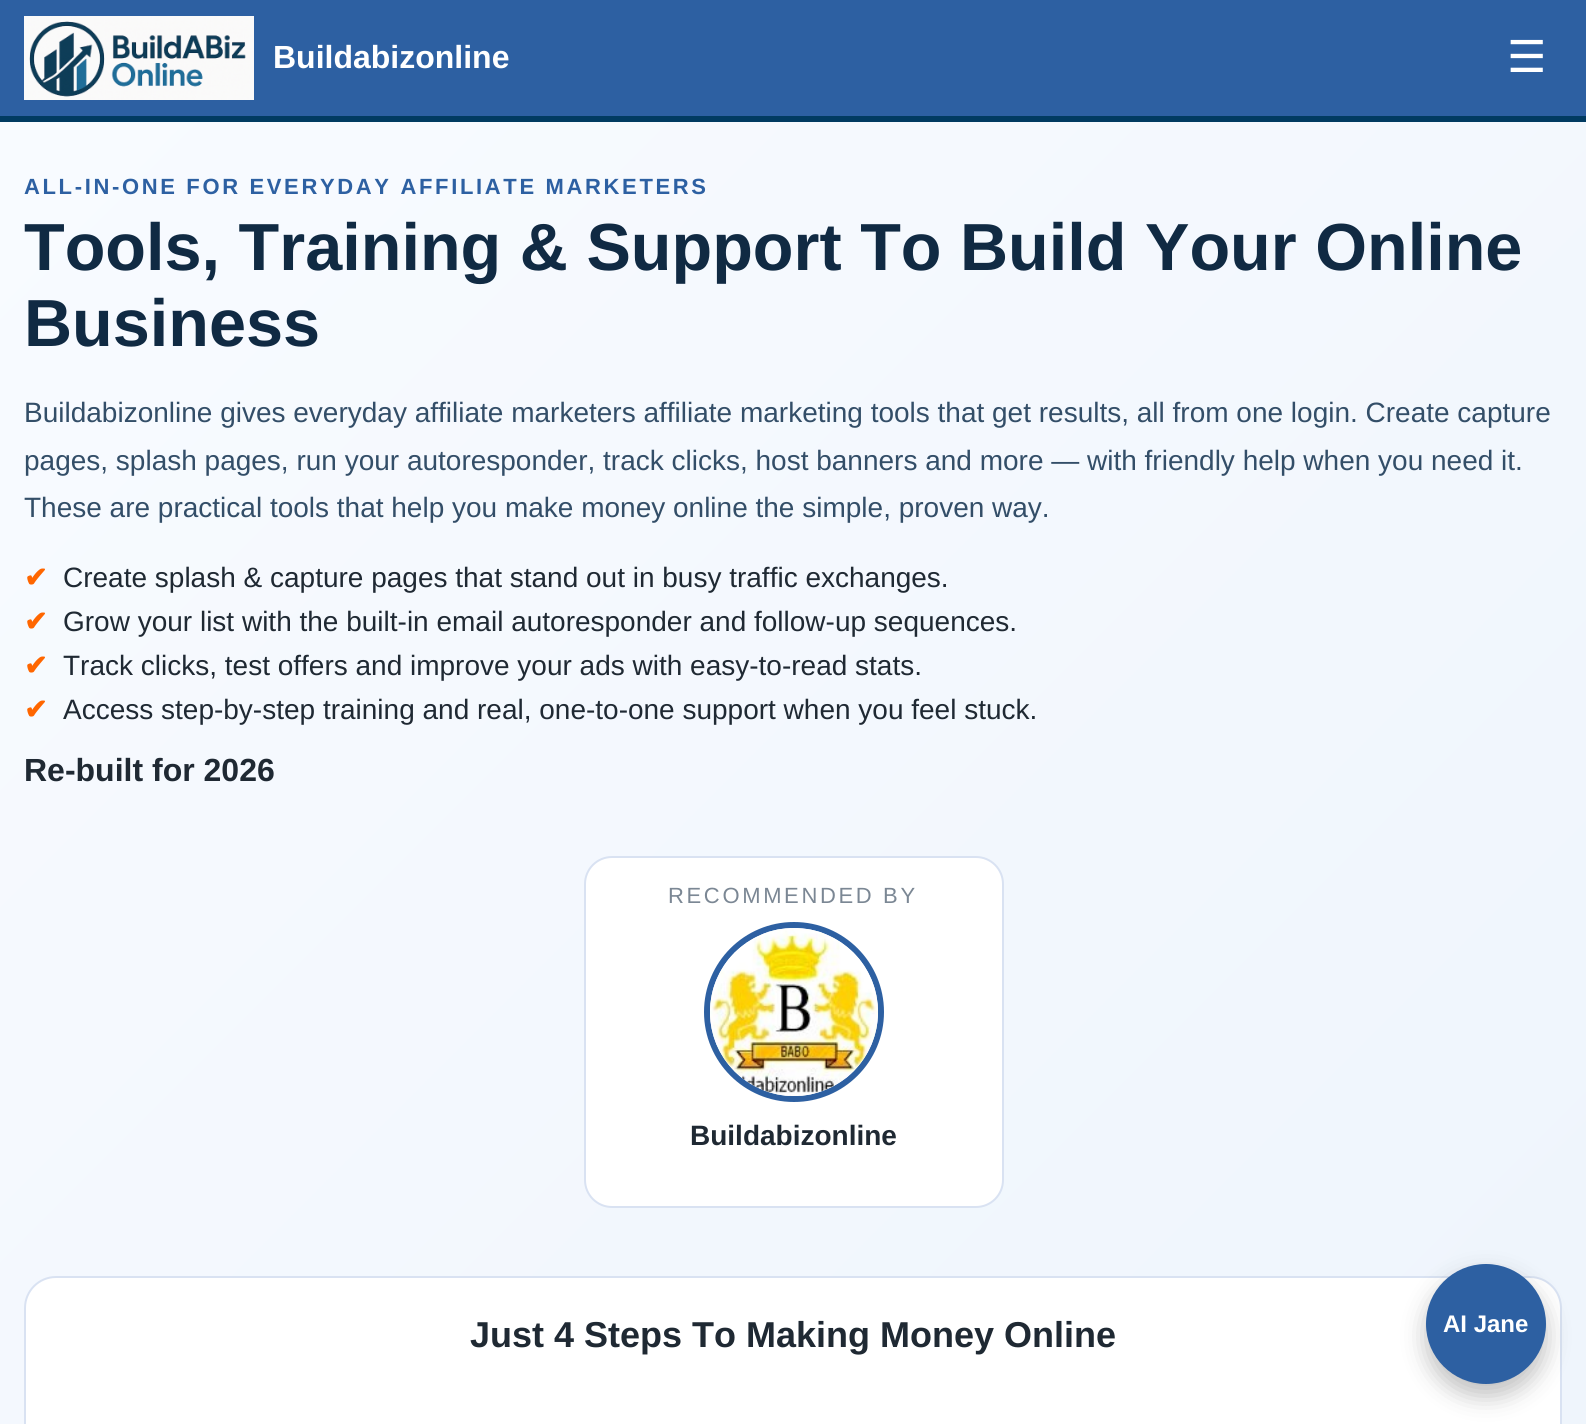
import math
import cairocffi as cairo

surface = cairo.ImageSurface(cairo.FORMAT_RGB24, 1586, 1424)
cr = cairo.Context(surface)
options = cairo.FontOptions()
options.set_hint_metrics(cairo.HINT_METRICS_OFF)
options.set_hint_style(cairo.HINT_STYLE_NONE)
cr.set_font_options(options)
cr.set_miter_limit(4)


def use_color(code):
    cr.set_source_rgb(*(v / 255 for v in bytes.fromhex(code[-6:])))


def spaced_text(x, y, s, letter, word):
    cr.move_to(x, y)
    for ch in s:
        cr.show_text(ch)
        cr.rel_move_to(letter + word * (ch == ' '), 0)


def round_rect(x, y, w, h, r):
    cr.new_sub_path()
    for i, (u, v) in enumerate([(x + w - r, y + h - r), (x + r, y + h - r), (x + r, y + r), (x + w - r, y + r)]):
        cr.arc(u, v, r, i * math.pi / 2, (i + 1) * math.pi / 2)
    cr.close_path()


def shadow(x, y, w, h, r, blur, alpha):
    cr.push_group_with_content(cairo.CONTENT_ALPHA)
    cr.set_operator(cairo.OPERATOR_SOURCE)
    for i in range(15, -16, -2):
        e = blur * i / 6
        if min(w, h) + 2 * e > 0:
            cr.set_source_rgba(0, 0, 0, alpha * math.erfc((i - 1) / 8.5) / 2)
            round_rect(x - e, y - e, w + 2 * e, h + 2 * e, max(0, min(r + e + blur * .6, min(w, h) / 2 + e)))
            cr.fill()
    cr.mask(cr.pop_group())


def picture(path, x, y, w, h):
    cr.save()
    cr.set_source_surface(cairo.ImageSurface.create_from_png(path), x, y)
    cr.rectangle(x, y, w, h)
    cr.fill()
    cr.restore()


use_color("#2d60a2")
cr.paint()
use_color("#013b61")
cr.rectangle(0, 116, 1586, 6)
cr.fill()
picture("img1.png", 24, 16, 230, 84)
cr.select_font_face("Liberation Sans", cairo.FONT_SLANT_NORMAL, cairo.FONT_WEIGHT_BOLD)
cr.set_font_size(32)
use_color("#ffffff")
cr.move_to(273, 68)
cr.show_text("Buildabizonline")
cr.select_font_face("DejaVu Sans")
cr.set_font_size(44)
cr.move_to(1507, 72)
cr.show_text("☰")
gradient = cairo.LinearGradient(-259, 381, 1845, 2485)
gradient.add_color_stop_rgba(0, 0.973, 0.984, 1, 1)
gradient.add_color_stop_rgba(1, 0.918, 0.949, 0.984, 1)
cr.set_source(gradient)
cr.rectangle(0, 122, 1586, 1302)
cr.fill()
cr.select_font_face("Liberation Sans", cairo.FONT_SLANT_NORMAL, cairo.FONT_WEIGHT_BOLD)
cr.set_font_size(22)
use_color("#2d60a2")
spaced_text(24, 194, "ALL-IN-ONE FOR EVERYDAY AFFILIATE MARKETERS", 2.65, 0)
cr.set_font_size(66.6)
use_color("#102a43")
cr.move_to(24, 270)
cr.show_text("Tools, Training & Support To Build Your Online")
cr.move_to(24, 346)
cr.show_text("Business")
cr.select_font_face("Liberation Sans")
cr.set_font_size(28)
use_color("#334e68")
cr.move_to(24, 422)
cr.show_text("Buildabizonline gives everyday affiliate marketers affiliate marketing tools that get results, all from one login. Create capture")
cr.move_to(24, 470)
cr.show_text("pages, splash pages, run your autoresponder, track clicks, host banners and more — with friendly help when you need it.")
cr.move_to(24, 517)
cr.show_text("These are practical tools that help you make money online the simple, proven way.")
cr.select_font_face("DejaVu Sans", cairo.FONT_SLANT_NORMAL, cairo.FONT_WEIGHT_BOLD)
use_color("#ff6600")
cr.move_to(24, 587)
cr.show_text("✔")
cr.select_font_face("Liberation Sans")
use_color("#1f2933")
cr.move_to(63, 587)
cr.show_text("Create splash & capture pages that stand out in busy traffic exchanges.")
cr.select_font_face("DejaVu Sans", cairo.FONT_SLANT_NORMAL, cairo.FONT_WEIGHT_BOLD)
use_color("#ff6600")
cr.move_to(24, 631)
cr.show_text("✔")
cr.select_font_face("Liberation Sans")
use_color("#1f2933")
cr.move_to(63, 631)
cr.show_text("Grow your list with the built-in email autoresponder and follow-up sequences.")
cr.select_font_face("DejaVu Sans", cairo.FONT_SLANT_NORMAL, cairo.FONT_WEIGHT_BOLD)
use_color("#ff6600")
cr.move_to(24, 675)
cr.show_text("✔")
cr.select_font_face("Liberation Sans")
use_color("#1f2933")
cr.move_to(63, 675)
cr.show_text("Track clicks, test offers and improve your ads with easy-to-read stats.")
cr.select_font_face("DejaVu Sans", cairo.FONT_SLANT_NORMAL, cairo.FONT_WEIGHT_BOLD)
use_color("#ff6600")
cr.move_to(24, 719)
cr.show_text("✔")
cr.select_font_face("Liberation Sans")
use_color("#1f2933")
cr.move_to(63, 719)
cr.show_text("Access step-by-step training and real, one-to-one support when you feel stuck.")
cr.select_font_face("Liberation Sans", cairo.FONT_SLANT_NORMAL, cairo.FONT_WEIGHT_BOLD)
cr.set_font_size(32)
cr.move_to(24, 781)
cr.show_text("Re-built for 2026")
use_color("#ffffff")
round_rect(585, 857, 418, 350, 27)
cr.fill_preserve()
use_color("#d9e2f2")
cr.stroke()
cr.select_font_face("Liberation Sans")
cr.set_font_size(22)
use_color("#7b8794")
spaced_text(668, 903, "RECOMMENDED BY", 2.65, 0)
cr.new_path()
cr.arc(794, 1012, 87, 0, 2 * math.pi)
use_color("#2d60a2")
cr.set_line_width(6)
cr.stroke()
picture("img2.png", 710, 928, 168, 168)
cr.select_font_face("Liberation Sans", cairo.FONT_SLANT_NORMAL, cairo.FONT_WEIGHT_BOLD)
cr.set_font_size(28)
use_color("#1f2933")
cr.move_to(690, 1145)
cr.show_text("Buildabizonline")
use_color("#ffffff")
round_rect(25, 1277, 1536, 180, 31)
cr.fill_preserve()
use_color("#d9e2f2")
cr.set_line_width(2)
cr.stroke()
cr.set_font_size(36)
use_color("#1f2933")
cr.move_to(470, 1347)
cr.show_text("Just 4 Steps To Making Money Online")
use_color("#000000")
shadow(1426, 1276, 120, 120, 60, 12, 0.25)
use_color("#2d60a2")
cr.arc(1486, 1324, 60, 0, 2 * math.pi)
cr.fill()
cr.set_font_size(24)
use_color("#ffffff")
cr.move_to(1443, 1332)
cr.show_text("AI Jane")
surface.write_to_png("result.png")
